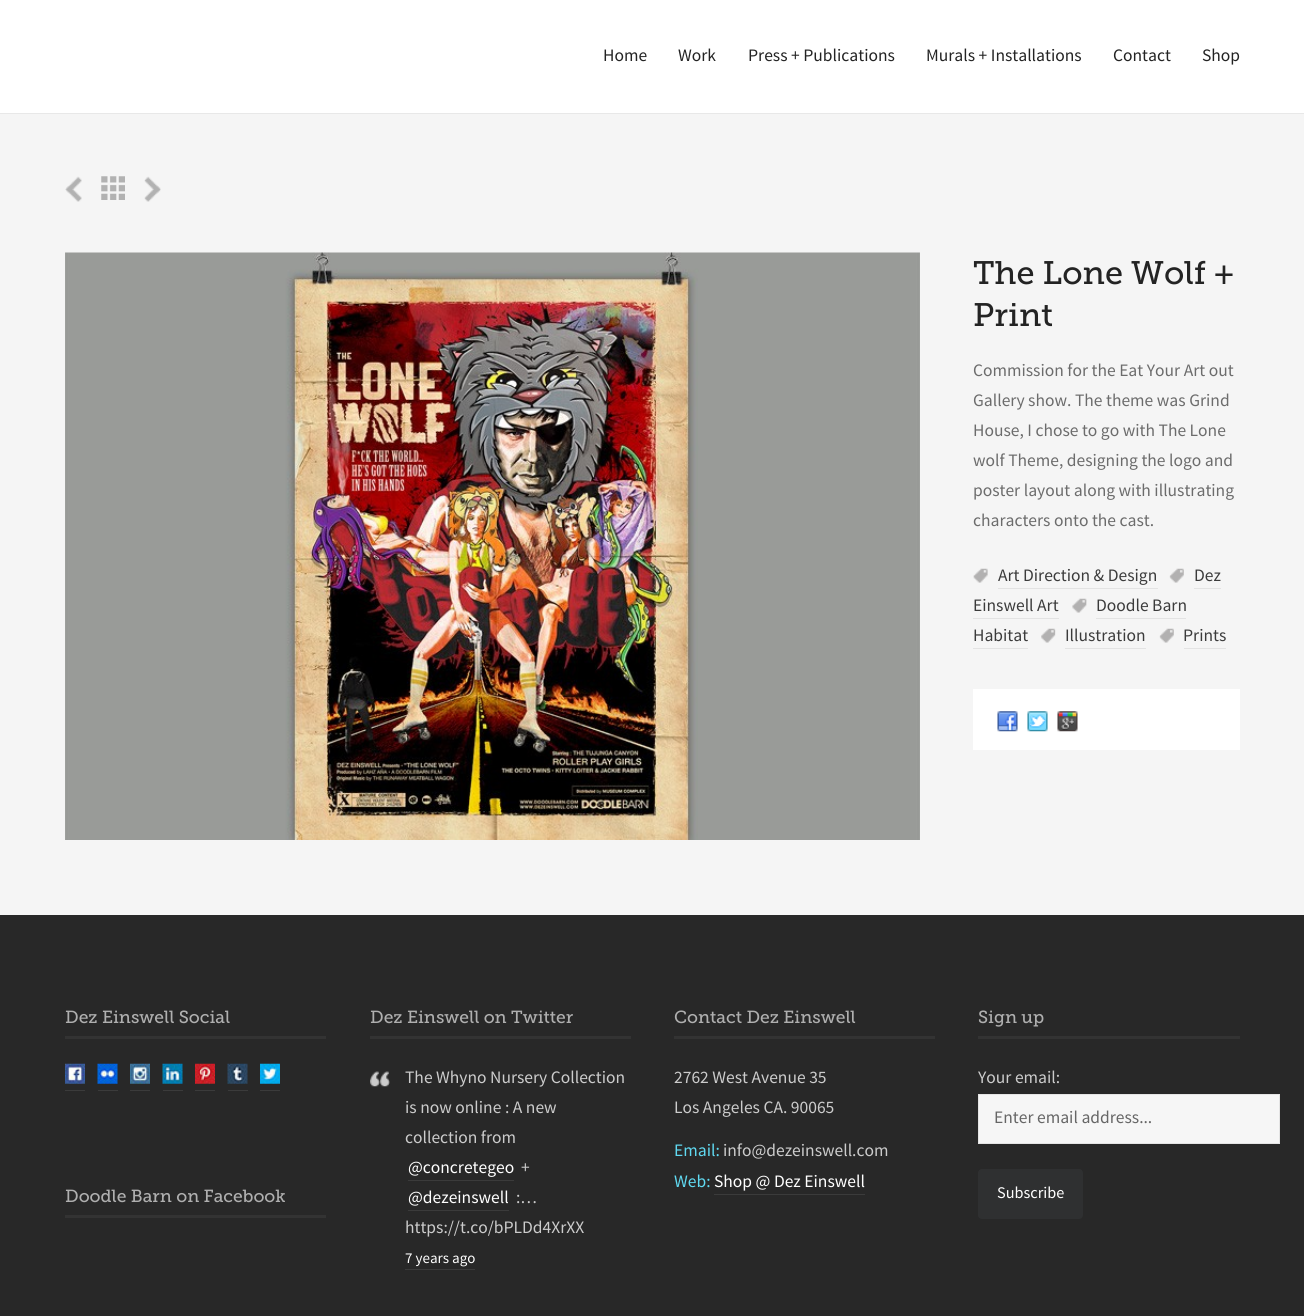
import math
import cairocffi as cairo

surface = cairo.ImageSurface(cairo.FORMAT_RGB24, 1304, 1316)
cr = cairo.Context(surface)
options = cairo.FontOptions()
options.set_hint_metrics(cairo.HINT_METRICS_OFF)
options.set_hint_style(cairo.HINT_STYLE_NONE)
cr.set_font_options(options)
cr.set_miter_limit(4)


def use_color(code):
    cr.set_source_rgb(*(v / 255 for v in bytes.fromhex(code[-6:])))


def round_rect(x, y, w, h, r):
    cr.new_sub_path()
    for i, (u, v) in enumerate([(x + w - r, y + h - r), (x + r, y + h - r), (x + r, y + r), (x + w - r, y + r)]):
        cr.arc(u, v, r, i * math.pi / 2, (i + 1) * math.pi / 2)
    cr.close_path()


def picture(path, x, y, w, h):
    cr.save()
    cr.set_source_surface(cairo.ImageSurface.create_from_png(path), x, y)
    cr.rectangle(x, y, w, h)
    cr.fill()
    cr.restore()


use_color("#f5f5f5")
cr.paint()
use_color("#ffffff")
cr.rectangle(0, 0, 1304, 113)
cr.fill()
use_color("#e8e8e8")
cr.rectangle(0, 113, 1304, 1)
cr.fill()
cr.select_font_face("Source Sans Pro")
cr.set_font_size(17.5)
use_color("#232323")
cr.move_to(603, 61)
cr.show_text("Home")
cr.move_to(678, 61)
cr.show_text("Work")
cr.move_to(748, 61)
cr.show_text("Press + Publications")
cr.move_to(926, 61)
cr.show_text("Murals + Installations")
cr.move_to(1113, 61)
cr.show_text("Contact")
cr.move_to(1202, 61)
cr.show_text("Shop")
picture("img1.png", 65, 176, 17, 26)
picture("img2.png", 101, 176, 24, 24)
picture("img3.png", 144, 176, 17, 26)
picture("img4.png", 65, 252, 855, 588)
cr.select_font_face("Museo Slab")
cr.set_font_size(32.5)
cr.move_to(973, 284)
cr.show_text("The Lone Wolf +")
cr.move_to(973, 326)
cr.show_text("Print")
cr.select_font_face("Source Sans Pro")
cr.set_font_size(17.5)
use_color("#6c6c6c")
cr.move_to(973, 376)
cr.show_text("Commission for the Eat Your Art out")
cr.move_to(973, 406)
cr.show_text("Gallery show. The theme was Grind")
cr.move_to(973, 436)
cr.show_text("House, I chose to go with The Lone")
cr.move_to(973, 466)
cr.show_text("wolf Theme, designing the logo and")
cr.move_to(973, 496)
cr.show_text("poster layout along with illustrating")
cr.move_to(973, 526)
cr.show_text("characters onto the cast.")
picture("img5.png", 973, 568, 15, 15)
use_color("#3b3b3b")
cr.move_to(998, 581)
cr.show_text("Art Direction & Design")
use_color("#e3e3e3")
cr.rectangle(998, 588, 160, 1)
cr.fill()
picture("img6.png", 1169, 568, 15, 15)
use_color("#3b3b3b")
cr.move_to(1194, 581)
cr.show_text("Dez")
use_color("#e3e3e3")
cr.rectangle(1194, 588, 27, 1)
cr.fill()
use_color("#3b3b3b")
cr.move_to(973, 611)
cr.show_text("Einswell Art")
use_color("#e3e3e3")
cr.rectangle(973, 618, 86, 1)
cr.fill()
picture("img7.png", 1072, 598, 15, 15)
use_color("#3b3b3b")
cr.move_to(1096, 611)
cr.show_text("Doodle Barn")
use_color("#e3e3e3")
cr.rectangle(1096, 618, 90, 1)
cr.fill()
use_color("#3b3b3b")
cr.move_to(973, 641)
cr.show_text("Habitat")
use_color("#e3e3e3")
cr.rectangle(973, 648, 55, 1)
cr.fill()
picture("img8.png", 1041, 628, 15, 15)
use_color("#3b3b3b")
cr.move_to(1065, 641)
cr.show_text("Illustration")
use_color("#e3e3e3")
cr.rectangle(1065, 648, 81, 1)
cr.fill()
picture("img6.png", 1159, 628, 15, 15)
use_color("#3b3b3b")
cr.move_to(1183, 641)
cr.show_text("Prints")
use_color("#e3e3e3")
cr.rectangle(1184, 648, 42, 1)
cr.fill()
use_color("#ffffff")
cr.rectangle(973, 689, 267, 61)
cr.fill()
picture("img9.png", 997, 711, 21, 21)
picture("img10.png", 1027, 711, 21, 21)
picture("img11.png", 1057, 711, 21, 21)
use_color("#282828")
cr.rectangle(0, 915, 1304, 401)
cr.fill()
use_color("#333333")
cr.rectangle(65, 1036, 261, 3)
cr.fill()
cr.select_font_face("Museo Slab")
use_color("#afafaf")
cr.move_to(65, 1023)
cr.show_text("Dez Einswell Social")
picture("img12.png", 65, 1063, 20, 21)
use_color("#3b3b3b")
cr.rectangle(65, 1090, 20, 1)
cr.fill()
picture("img13.png", 97, 1063, 21, 21)
cr.rectangle(98, 1090, 20, 1)
cr.fill()
picture("img14.png", 130, 1063, 20, 21)
cr.rectangle(130, 1090, 20, 1)
cr.fill()
picture("img15.png", 162, 1063, 21, 21)
cr.rectangle(163, 1090, 20, 1)
cr.fill()
picture("img16.png", 195, 1063, 20, 21)
cr.rectangle(195, 1090, 20, 1)
cr.fill()
picture("img17.png", 227, 1063, 21, 21)
cr.rectangle(228, 1090, 20, 1)
cr.fill()
picture("img18.png", 260, 1063, 20, 21)
cr.rectangle(260, 1090, 20, 1)
cr.fill()
use_color("#333333")
cr.rectangle(65, 1215, 261, 3)
cr.fill()
use_color("#afafaf")
cr.move_to(65, 1202)
cr.show_text("Doodle Barn on Facebook")
use_color("#333333")
cr.rectangle(370, 1036, 261, 3)
cr.fill()
use_color("#afafaf")
cr.move_to(370, 1023)
cr.show_text("Dez Einswell on Twitter")
picture("img19.png", 370, 1071, 20, 16)
cr.select_font_face("Source Sans Pro")
use_color("#cccccc")
cr.move_to(405, 1083)
cr.show_text("The Whyno Nursery Collection")
cr.move_to(405, 1113)
cr.show_text("is now online : A new")
cr.move_to(405, 1143)
cr.show_text("collection from")
use_color("#ffffff")
cr.move_to(408, 1173)
cr.show_text("@concretegeo")
use_color("#3b3b3b")
cr.rectangle(408, 1180, 106, 1)
cr.fill()
use_color("#cccccc")
cr.move_to(521, 1173)
cr.show_text("+")
use_color("#ffffff")
cr.move_to(408, 1203)
cr.show_text("@dezeinswell")
use_color("#3b3b3b")
cr.rectangle(408, 1210, 101, 1)
cr.fill()
use_color("#cccccc")
cr.move_to(516, 1203)
cr.show_text(":…")
cr.move_to(405, 1233)
cr.show_text("https://t.co/bPLDd4XrXX")
cr.set_font_size(15)
use_color("#ffffff")
cr.move_to(405, 1263)
cr.show_text("7 years ago")
use_color("#3b3b3b")
cr.rectangle(405, 1269, 70, 1)
cr.fill()
use_color("#333333")
cr.rectangle(674, 1036, 261, 3)
cr.fill()
cr.select_font_face("Museo Slab")
cr.set_font_size(17.5)
use_color("#afafaf")
cr.move_to(674, 1023)
cr.show_text("Contact Dez Einswell")
cr.select_font_face("Source Sans Pro")
use_color("#cccccc")
cr.move_to(674, 1083)
cr.show_text("2762 West Avenue 35")
cr.move_to(674, 1113)
cr.show_text("Los Angeles CA. 90065")
use_color("#60daf2")
cr.move_to(674, 1156)
cr.show_text("Email:")
use_color("#cccccc")
cr.move_to(723, 1156)
cr.show_text("info@dezeinswell.com")
use_color("#60daf2")
cr.move_to(674, 1187)
cr.show_text("Web:")
use_color("#ffffff")
cr.move_to(714, 1187)
cr.show_text("Shop @ Dez Einswell")
use_color("#3b3b3b")
cr.rectangle(714, 1194, 151, 1)
cr.fill()
use_color("#333333")
cr.rectangle(978, 1036, 262, 3)
cr.fill()
cr.select_font_face("Museo Slab")
use_color("#afafaf")
cr.move_to(978, 1023)
cr.show_text("Sign up")
cr.select_font_face("Source Sans Pro")
use_color("#cccccc")
cr.move_to(978, 1083)
cr.show_text("Your email:")
use_color("#f6f6f6")
cr.rectangle(978.5, 1094.5, 301, 49)
cr.fill_preserve()
use_color("#e4e4e4")
cr.set_line_width(1)
cr.stroke()
use_color("#666666")
cr.move_to(994, 1123)
cr.show_text("Enter email address...")
use_color("#2f3031")
round_rect(978, 1169, 105, 50, 4)
cr.fill()
cr.set_font_size(16.25)
use_color("#ffffff")
cr.move_to(997, 1198)
cr.show_text("Subscribe")
surface.write_to_png("result.png")
